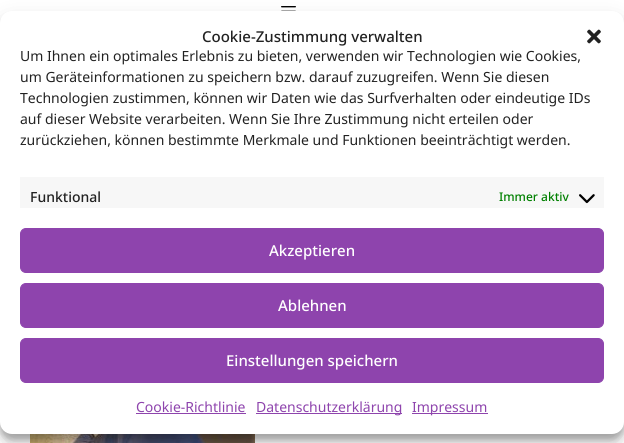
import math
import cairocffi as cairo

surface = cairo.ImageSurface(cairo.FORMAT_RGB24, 624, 443)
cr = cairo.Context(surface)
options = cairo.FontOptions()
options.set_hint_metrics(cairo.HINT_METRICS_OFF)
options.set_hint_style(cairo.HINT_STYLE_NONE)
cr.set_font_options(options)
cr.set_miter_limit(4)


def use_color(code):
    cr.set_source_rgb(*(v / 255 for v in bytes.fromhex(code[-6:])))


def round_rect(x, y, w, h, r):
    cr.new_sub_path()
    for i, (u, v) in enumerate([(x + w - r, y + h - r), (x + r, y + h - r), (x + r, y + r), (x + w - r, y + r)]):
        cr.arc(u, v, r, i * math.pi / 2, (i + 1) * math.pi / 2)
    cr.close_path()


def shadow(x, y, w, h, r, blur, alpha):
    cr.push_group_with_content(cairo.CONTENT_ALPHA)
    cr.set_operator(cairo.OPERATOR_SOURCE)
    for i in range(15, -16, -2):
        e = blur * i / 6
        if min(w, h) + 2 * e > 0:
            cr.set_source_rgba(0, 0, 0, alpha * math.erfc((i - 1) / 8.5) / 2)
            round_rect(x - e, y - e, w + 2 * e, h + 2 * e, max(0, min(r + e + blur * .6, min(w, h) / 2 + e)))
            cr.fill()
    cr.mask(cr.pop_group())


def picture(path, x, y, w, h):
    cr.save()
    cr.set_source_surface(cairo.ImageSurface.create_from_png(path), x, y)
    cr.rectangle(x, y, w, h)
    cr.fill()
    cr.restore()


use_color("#ffffff")
cr.paint()
picture("img1.png", 281, 6, 15, 5)
picture("img4.png", 30, 434, 225, 9)
use_color("#000000")
shadow(0, 17, 624, 423, 12, 3, 0.23)
shadow(0, 21, 624, 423, 12, 10, 0.19)
use_color("#ffffff")
round_rect(0, 11, 624, 423, 12)
cr.fill()
cr.select_font_face("Noto Sans Medium")
cr.set_font_size(15)
use_color("#222222")
cr.move_to(202, 42)
cr.show_text("Cookie-Zustimmung verwalten")
picture("img2.png", 587, 29, 14, 15)
cr.select_font_face("Noto Sans")
cr.set_font_size(14)
cr.move_to(20, 61)
cr.show_text("Um Ihnen ein optimales Erlebnis zu bieten, verwenden wir Technologien wie Cookies,")
cr.move_to(20, 82)
cr.show_text("um Geräteinformationen zu speichern bzw. darauf zuzugreifen. Wenn Sie diesen")
cr.move_to(20, 103)
cr.show_text("Technologien zustimmen, können wir Daten wie das Surfverhalten oder eindeutige IDs")
cr.move_to(20, 124)
cr.show_text("auf dieser Website verarbeiten. Wenn Sie Ihre Zustimmung nicht erteilen oder")
cr.move_to(20, 145)
cr.show_text("zurückziehen, können bestimmte Merkmale und Funktionen beeinträchtigt werden.")
use_color("#f7f7f7")
cr.rectangle(20, 177, 584, 31)
cr.fill()
cr.select_font_face("Noto Sans Medium")
use_color("#222222")
cr.move_to(30, 202)
cr.show_text("Funktional")
cr.set_font_size(12)
use_color("#008000")
cr.move_to(499, 201)
cr.show_text("Immer aktiv")
picture("img3.png", 579, 194, 16, 10)
use_color("#8e44ad")
round_rect(20.5, 228.5, 583, 44, 5.5)
cr.fill_preserve()
cr.set_line_width(1)
cr.stroke()
cr.set_font_size(15)
use_color("#ffffff")
cr.move_to(269, 256)
cr.show_text("Akzeptieren")
use_color("#8e44ad")
round_rect(20.5, 283.5, 583, 44, 5.5)
cr.fill_preserve()
cr.stroke()
use_color("#ffffff")
cr.move_to(278, 311)
cr.show_text("Ablehnen")
use_color("#8e44ad")
round_rect(20.5, 338.5, 583, 44, 5.5)
cr.fill_preserve()
cr.stroke()
use_color("#ffffff")
cr.move_to(226, 366)
cr.show_text("Einstellungen speichern")
cr.select_font_face("Noto Sans")
cr.set_font_size(14)
use_color("#8e44ad")
cr.move_to(136, 412)
cr.show_text("Cookie-Richtlinie")
cr.rectangle(136, 413, 110, 1)
cr.fill()
cr.rectangle(256, 413, 146, 1)
cr.fill()
cr.move_to(256, 412)
cr.show_text("Datenschutzerklärung")
cr.rectangle(412, 413, 76, 1)
cr.fill()
cr.move_to(412, 412)
cr.show_text("Impressum")
surface.write_to_png("result.png")
